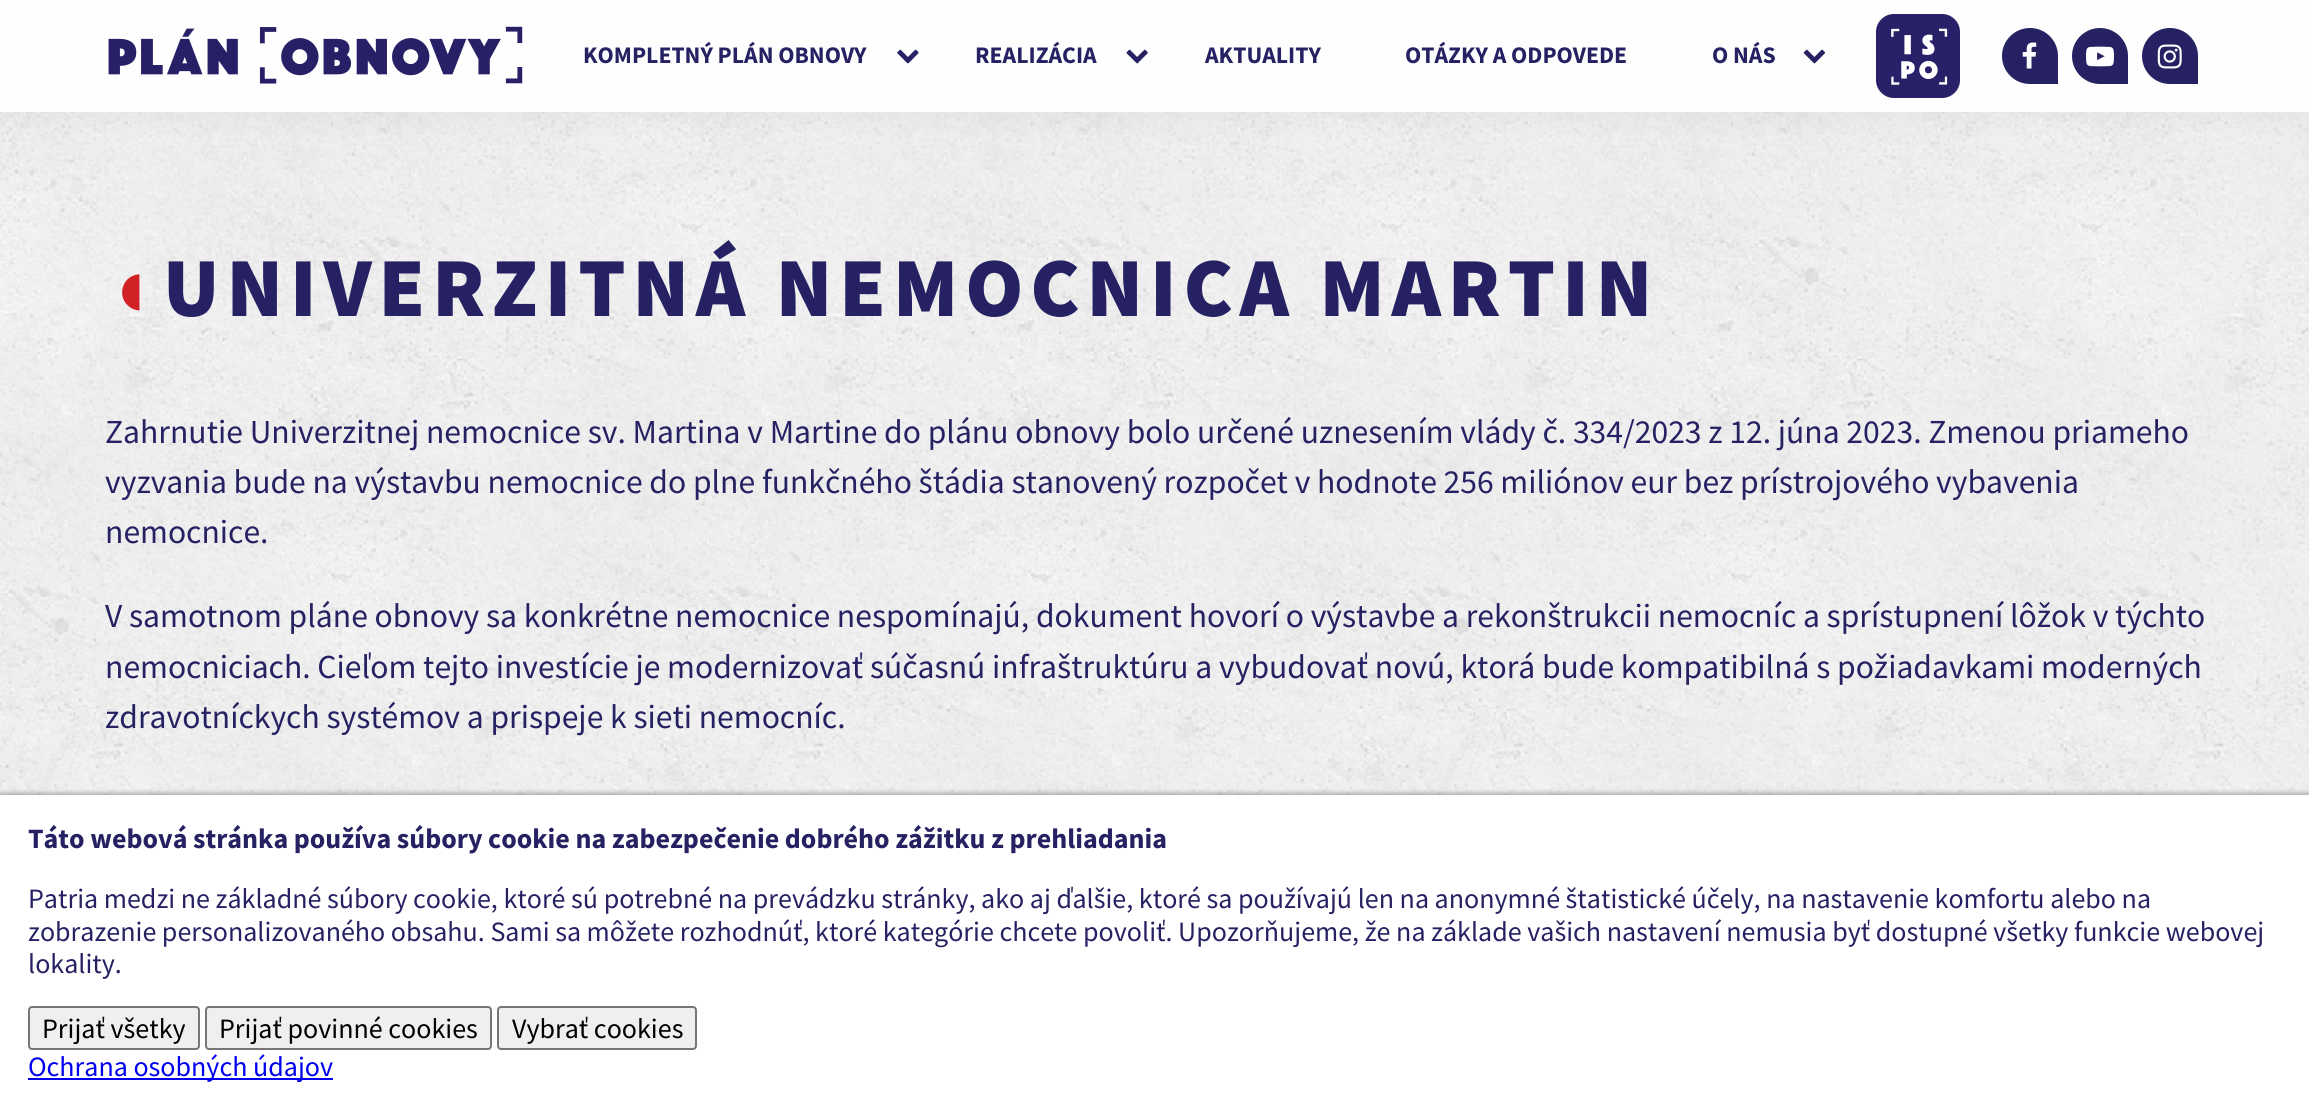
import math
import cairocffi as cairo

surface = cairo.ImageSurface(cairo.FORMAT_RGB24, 2309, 1108)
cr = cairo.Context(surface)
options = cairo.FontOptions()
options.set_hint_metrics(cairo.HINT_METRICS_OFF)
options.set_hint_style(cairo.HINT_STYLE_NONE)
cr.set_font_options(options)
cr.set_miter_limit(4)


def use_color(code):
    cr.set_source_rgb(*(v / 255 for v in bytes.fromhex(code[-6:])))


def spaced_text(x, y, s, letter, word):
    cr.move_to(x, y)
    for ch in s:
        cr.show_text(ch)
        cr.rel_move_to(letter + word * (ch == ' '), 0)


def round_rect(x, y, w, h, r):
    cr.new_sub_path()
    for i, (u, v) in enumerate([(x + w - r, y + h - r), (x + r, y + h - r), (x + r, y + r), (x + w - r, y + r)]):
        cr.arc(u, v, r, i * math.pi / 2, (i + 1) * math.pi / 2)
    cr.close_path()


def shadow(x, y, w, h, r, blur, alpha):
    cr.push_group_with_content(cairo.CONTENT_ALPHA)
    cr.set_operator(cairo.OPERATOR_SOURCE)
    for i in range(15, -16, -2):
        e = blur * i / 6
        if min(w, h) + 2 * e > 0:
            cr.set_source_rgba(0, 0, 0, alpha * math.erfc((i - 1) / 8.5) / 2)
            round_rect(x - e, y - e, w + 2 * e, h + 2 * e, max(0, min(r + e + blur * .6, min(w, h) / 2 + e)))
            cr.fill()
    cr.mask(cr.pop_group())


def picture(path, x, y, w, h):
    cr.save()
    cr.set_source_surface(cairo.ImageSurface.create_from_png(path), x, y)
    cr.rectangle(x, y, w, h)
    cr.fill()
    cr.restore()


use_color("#ffffff")
cr.paint()
picture("img1.png", 0, 112, 2309, 683)
use_color("#131313")
shadow(0, 4, 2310, 112, 0, 14, 0.05)
use_color("#fefefe")
cr.rectangle(0, 0, 2309, 112)
cr.fill()
picture("img2.png", 108, 26, 415, 58)
cr.select_font_face("Source Sans Pro", cairo.FONT_SLANT_NORMAL, cairo.FONT_WEIGHT_BOLD)
cr.set_font_size(23.75)
use_color("#252163")
cr.move_to(583, 63)
cr.show_text("KOMPLETNÝ PLÁN OBNOVY")
picture("img3.png", 897, 49, 22, 15)
cr.move_to(975, 63)
cr.show_text("REALIZÁCIA")
picture("img4.png", 1126, 49, 22, 15)
cr.move_to(1205, 63)
cr.show_text("AKTUALITY")
cr.move_to(1405, 63)
cr.show_text("OTÁZKY A ODPOVEDE")
cr.move_to(1712, 63)
cr.show_text("O NÁS")
picture("img5.png", 1803, 49, 23, 15)
picture("img6.png", 1876, 14, 84, 84)
cr.new_path()
cr.move_to(2030, 28)
cr.curve_to(2045.5, 28, 2058, 40.5, 2058, 56)
cr.line_to(2058, 84)
cr.line_to(2030, 84)
cr.curve_to(2014.5, 84, 2002, 71.5, 2002, 56)
cr.curve_to(2002, 40.5, 2014.5, 28, 2030, 28)
cr.close_path()
cr.fill()
picture("img7.png", 2022, 42, 15, 27)
cr.new_path()
cr.move_to(2100, 28)
cr.curve_to(2115.5, 28, 2128, 40.5, 2128, 56)
cr.line_to(2128, 84)
cr.line_to(2100, 84)
cr.curve_to(2084.5, 84, 2072, 71.5, 2072, 56)
cr.curve_to(2072, 40.5, 2084.5, 28, 2100, 28)
cr.close_path()
cr.fill()
picture("img8.png", 2086, 46, 28, 21)
cr.new_path()
cr.move_to(2170, 28)
cr.curve_to(2185.5, 28, 2198, 40.5, 2198, 56)
cr.line_to(2198, 84)
cr.line_to(2170, 84)
cr.curve_to(2154.5, 84, 2142, 71.5, 2142, 56)
cr.curve_to(2142, 40.5, 2154.5, 28, 2170, 28)
cr.close_path()
cr.fill()
picture("img9.png", 2157, 44, 25, 25)
cr.select_font_face("Liberation Sans", cairo.FONT_SLANT_NORMAL, cairo.FONT_WEIGHT_BOLD)
cr.set_font_size(84)
use_color("#d12127")
spaced_text(105, 316, "◖", 7, 0)
cr.select_font_face("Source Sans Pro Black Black")
use_color("#252163")
spaced_text(163, 316, "UNIVERZITNÁ NEMOCNICA MARTIN", 7, 0)
cr.select_font_face("Source Sans Pro")
cr.set_font_size(33.6)
cr.move_to(105, 443)
cr.show_text("Zahrnutie Univerzitnej nemocnice sv. Martina v Martine do plánu obnovy bolo určené uznesením vlády č. 334/2023 z 12. júna 2023. Zmenou priameho")
cr.move_to(105, 493)
cr.show_text("vyzvania bude na výstavbu nemocnice do plne funkčného štádia stanovený rozpočet v hodnote 256 miliónov eur bez prístrojového vybavenia")
cr.move_to(105, 543)
cr.show_text("nemocnice.")
cr.move_to(105, 627)
cr.show_text("V samotnom pláne obnovy sa konkrétne nemocnice nespomínajú, dokument hovorí o výstavbe a rekonštrukcii nemocníc a sprístupnení lôžok v týchto")
cr.move_to(105, 678)
cr.show_text("nemocniciach. Cieľom tejto investície je modernizovať súčasnú infraštruktúru a vybudovať novú, ktorá bude kompatibilná s požiadavkami moderných")
cr.move_to(105, 728)
cr.show_text("zdravotníckych systémov a prispeje k sieti nemocníc.")
use_color("#000000")
shadow(0, 793, 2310, 315, 0, 2.5, 0.3)
use_color("#ffffff")
cr.rectangle(0, 795, 2309, 313)
cr.fill()
cr.select_font_face("Source Sans Pro", cairo.FONT_SLANT_NORMAL, cairo.FONT_WEIGHT_BOLD)
cr.set_font_size(28)
use_color("#252163")
cr.move_to(28, 848)
cr.show_text("Táto webová stránka používa súbory cookie na zabezpečenie dobrého zážitku z prehliadania")
cr.select_font_face("Source Sans Pro")
cr.move_to(28, 908)
cr.show_text("Patria medzi ne základné súbory cookie, ktoré sú potrebné na prevádzku stránky, ako aj ďalšie, ktoré sa používajú len na anonymné štatistické účely, na nastavenie komfortu alebo na")
cr.move_to(28, 941)
cr.show_text("zobrazenie personalizovaného obsahu. Sami sa môžete rozhodnúť, ktoré kategórie chcete povoliť. Upozorňujeme, že na základe vašich nastavení nemusia byť dostupné všetky funkcie webovej")
cr.move_to(28, 973)
cr.show_text("lokality.")
use_color("#efefef")
round_rect(29, 1007, 170, 42, 3)
cr.fill_preserve()
use_color("#767676")
cr.stroke()
use_color("#000000")
cr.move_to(42, 1038)
cr.show_text("Prijať všetky")
use_color("#efefef")
round_rect(206, 1007, 285, 42, 3)
cr.fill_preserve()
use_color("#767676")
cr.stroke()
use_color("#000000")
cr.move_to(219, 1038)
cr.show_text("Prijať povinné cookies")
use_color("#efefef")
round_rect(498, 1007, 198, 42, 3)
cr.fill_preserve()
use_color("#767676")
cr.stroke()
use_color("#000000")
cr.move_to(512, 1038)
cr.show_text("Vybrať cookies")
use_color("#0000ee")
cr.rectangle(28, 1078, 305, 2)
cr.fill()
cr.move_to(28, 1076)
cr.show_text("Ochrana osobných údajov")
surface.write_to_png("result.png")
